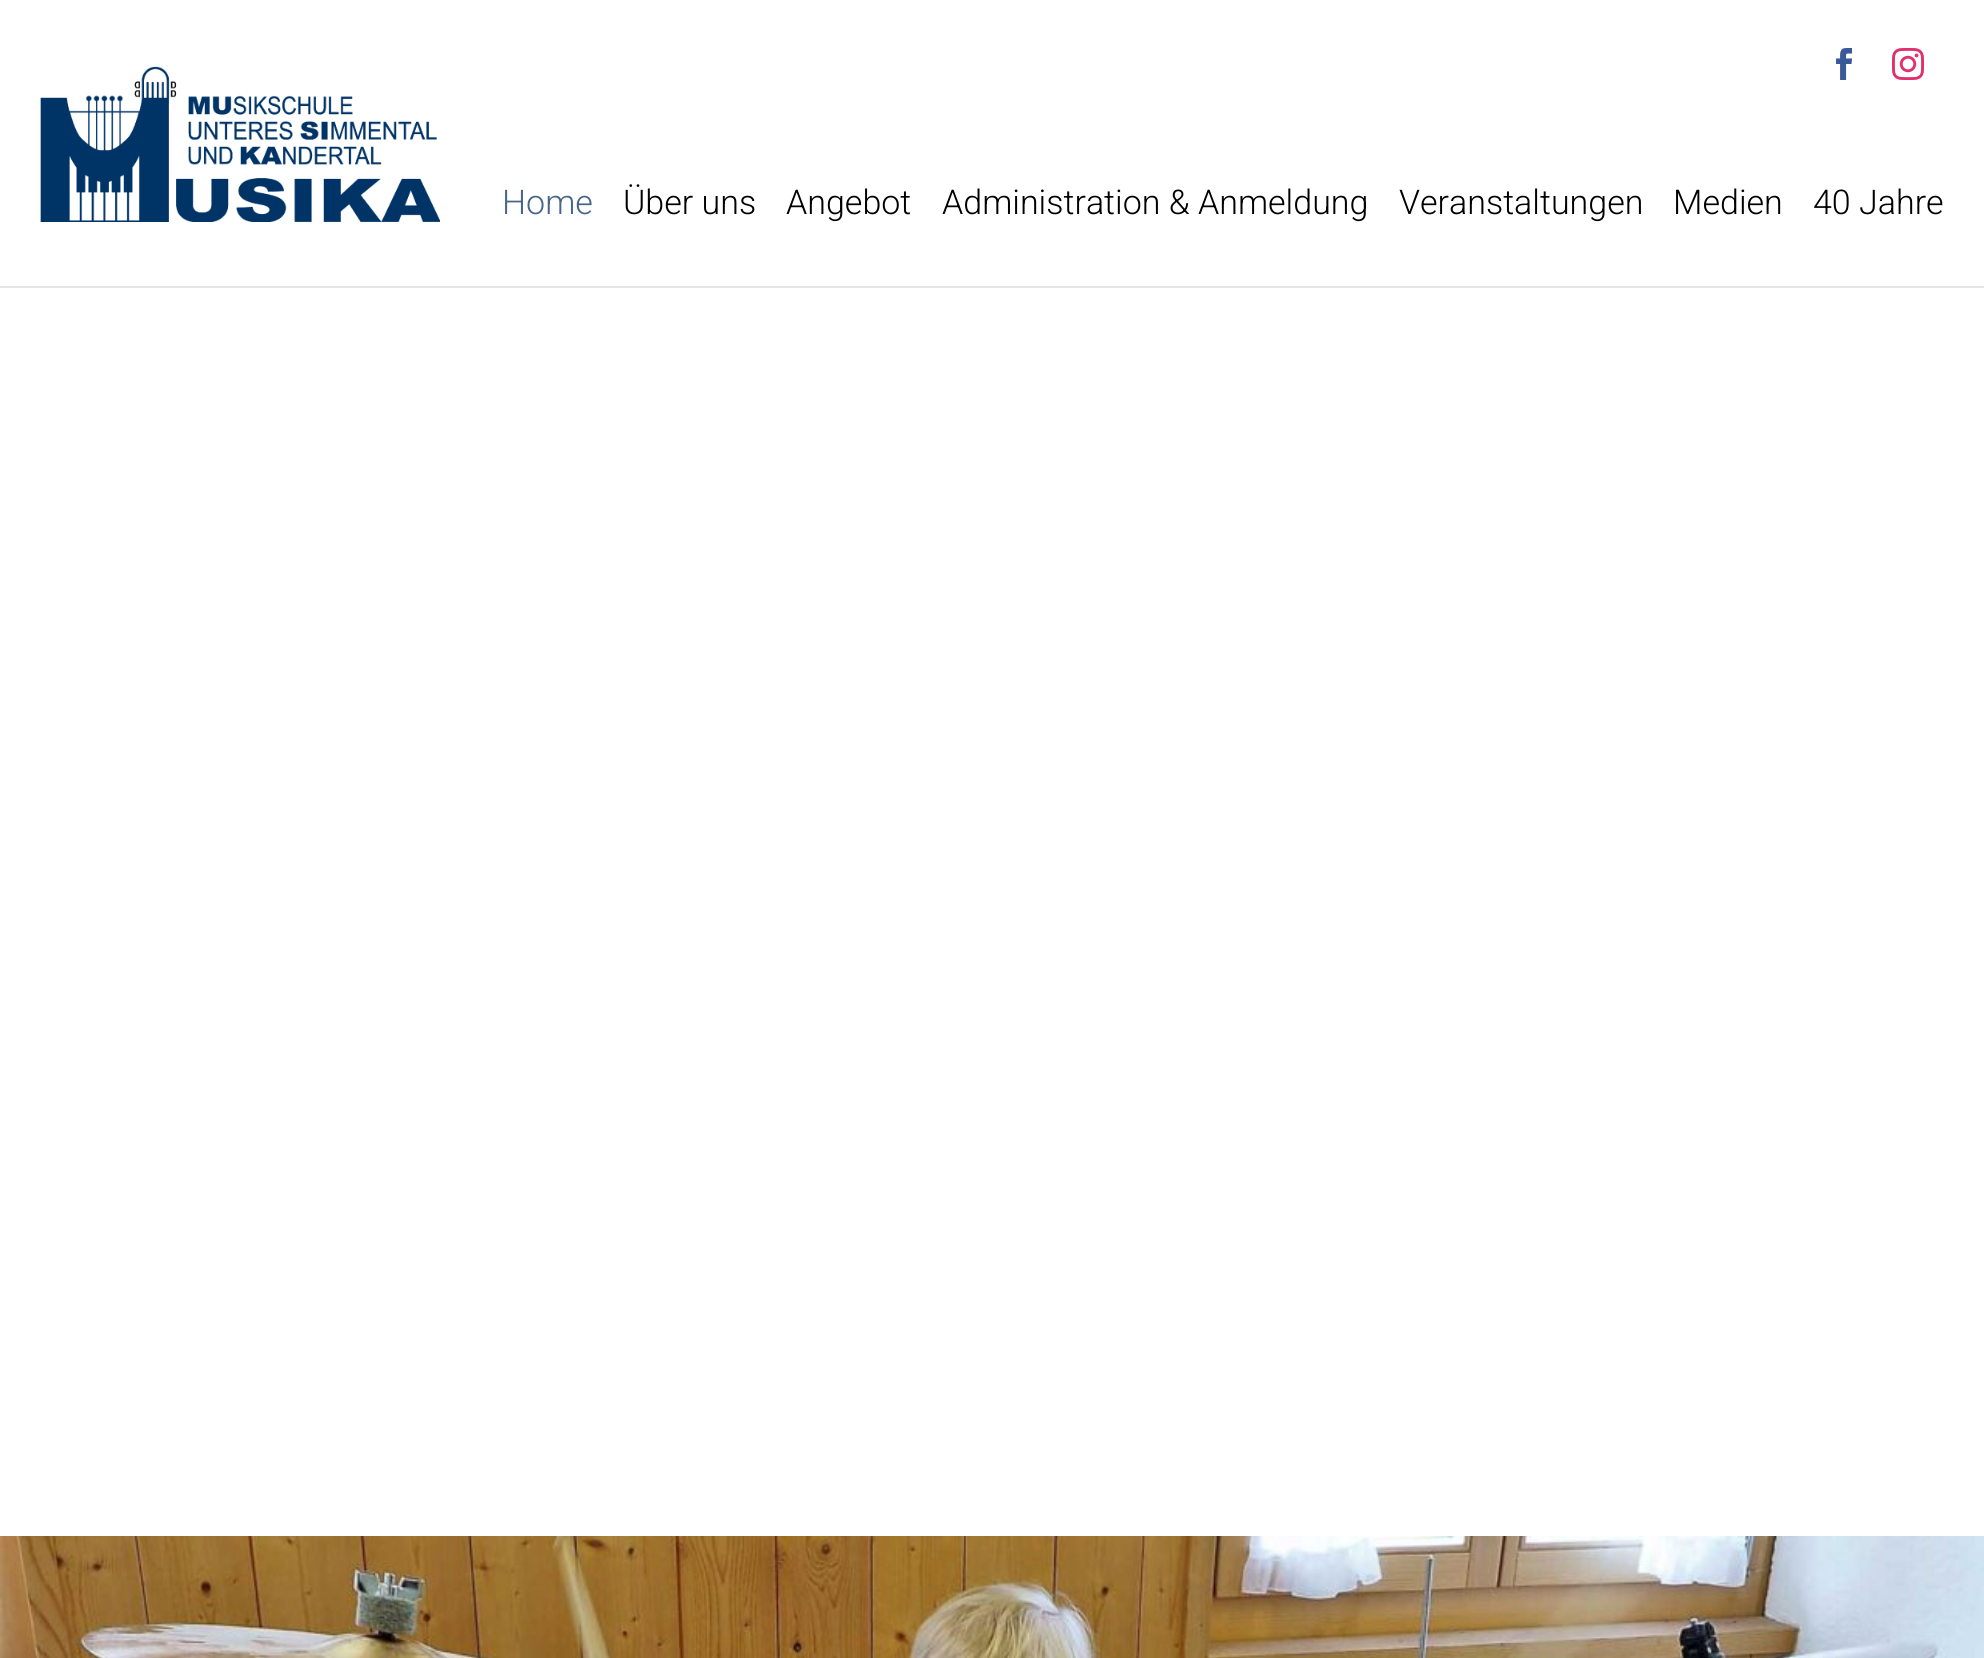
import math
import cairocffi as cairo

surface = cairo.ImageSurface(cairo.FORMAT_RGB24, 1984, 1658)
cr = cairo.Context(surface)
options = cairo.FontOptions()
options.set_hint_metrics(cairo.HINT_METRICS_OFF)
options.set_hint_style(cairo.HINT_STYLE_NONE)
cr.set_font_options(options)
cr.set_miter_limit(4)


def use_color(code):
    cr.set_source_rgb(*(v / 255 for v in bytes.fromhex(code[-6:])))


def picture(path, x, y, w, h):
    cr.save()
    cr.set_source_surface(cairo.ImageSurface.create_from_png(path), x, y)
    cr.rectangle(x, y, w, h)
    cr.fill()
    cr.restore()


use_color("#ffffff")
cr.paint()
picture("img1.png", 1836, 48, 17, 32)
picture("img2.png", 1892, 48, 32, 32)
use_color("#e6e6e6")
cr.rectangle(0, 286, 1984, 2)
cr.fill()
picture("img3.png", 40, 66, 400, 156)
cr.select_font_face("Roboto Light")
cr.set_font_size(34)
use_color("#476587")
cr.move_to(502, 214)
cr.show_text("Home")
use_color("#000000")
cr.move_to(623, 214)
cr.show_text("Über uns")
cr.move_to(786, 214)
cr.show_text("Angebot")
cr.move_to(942, 214)
cr.show_text("Administration & Anmeldung")
cr.move_to(1399, 214)
cr.show_text("Veranstaltungen")
cr.move_to(1673, 214)
cr.show_text("Medien")
cr.move_to(1813, 214)
cr.show_text("40 Jahre")
picture("img4.png", 0, 1536, 1984, 122)
surface.write_to_png("result.png")
